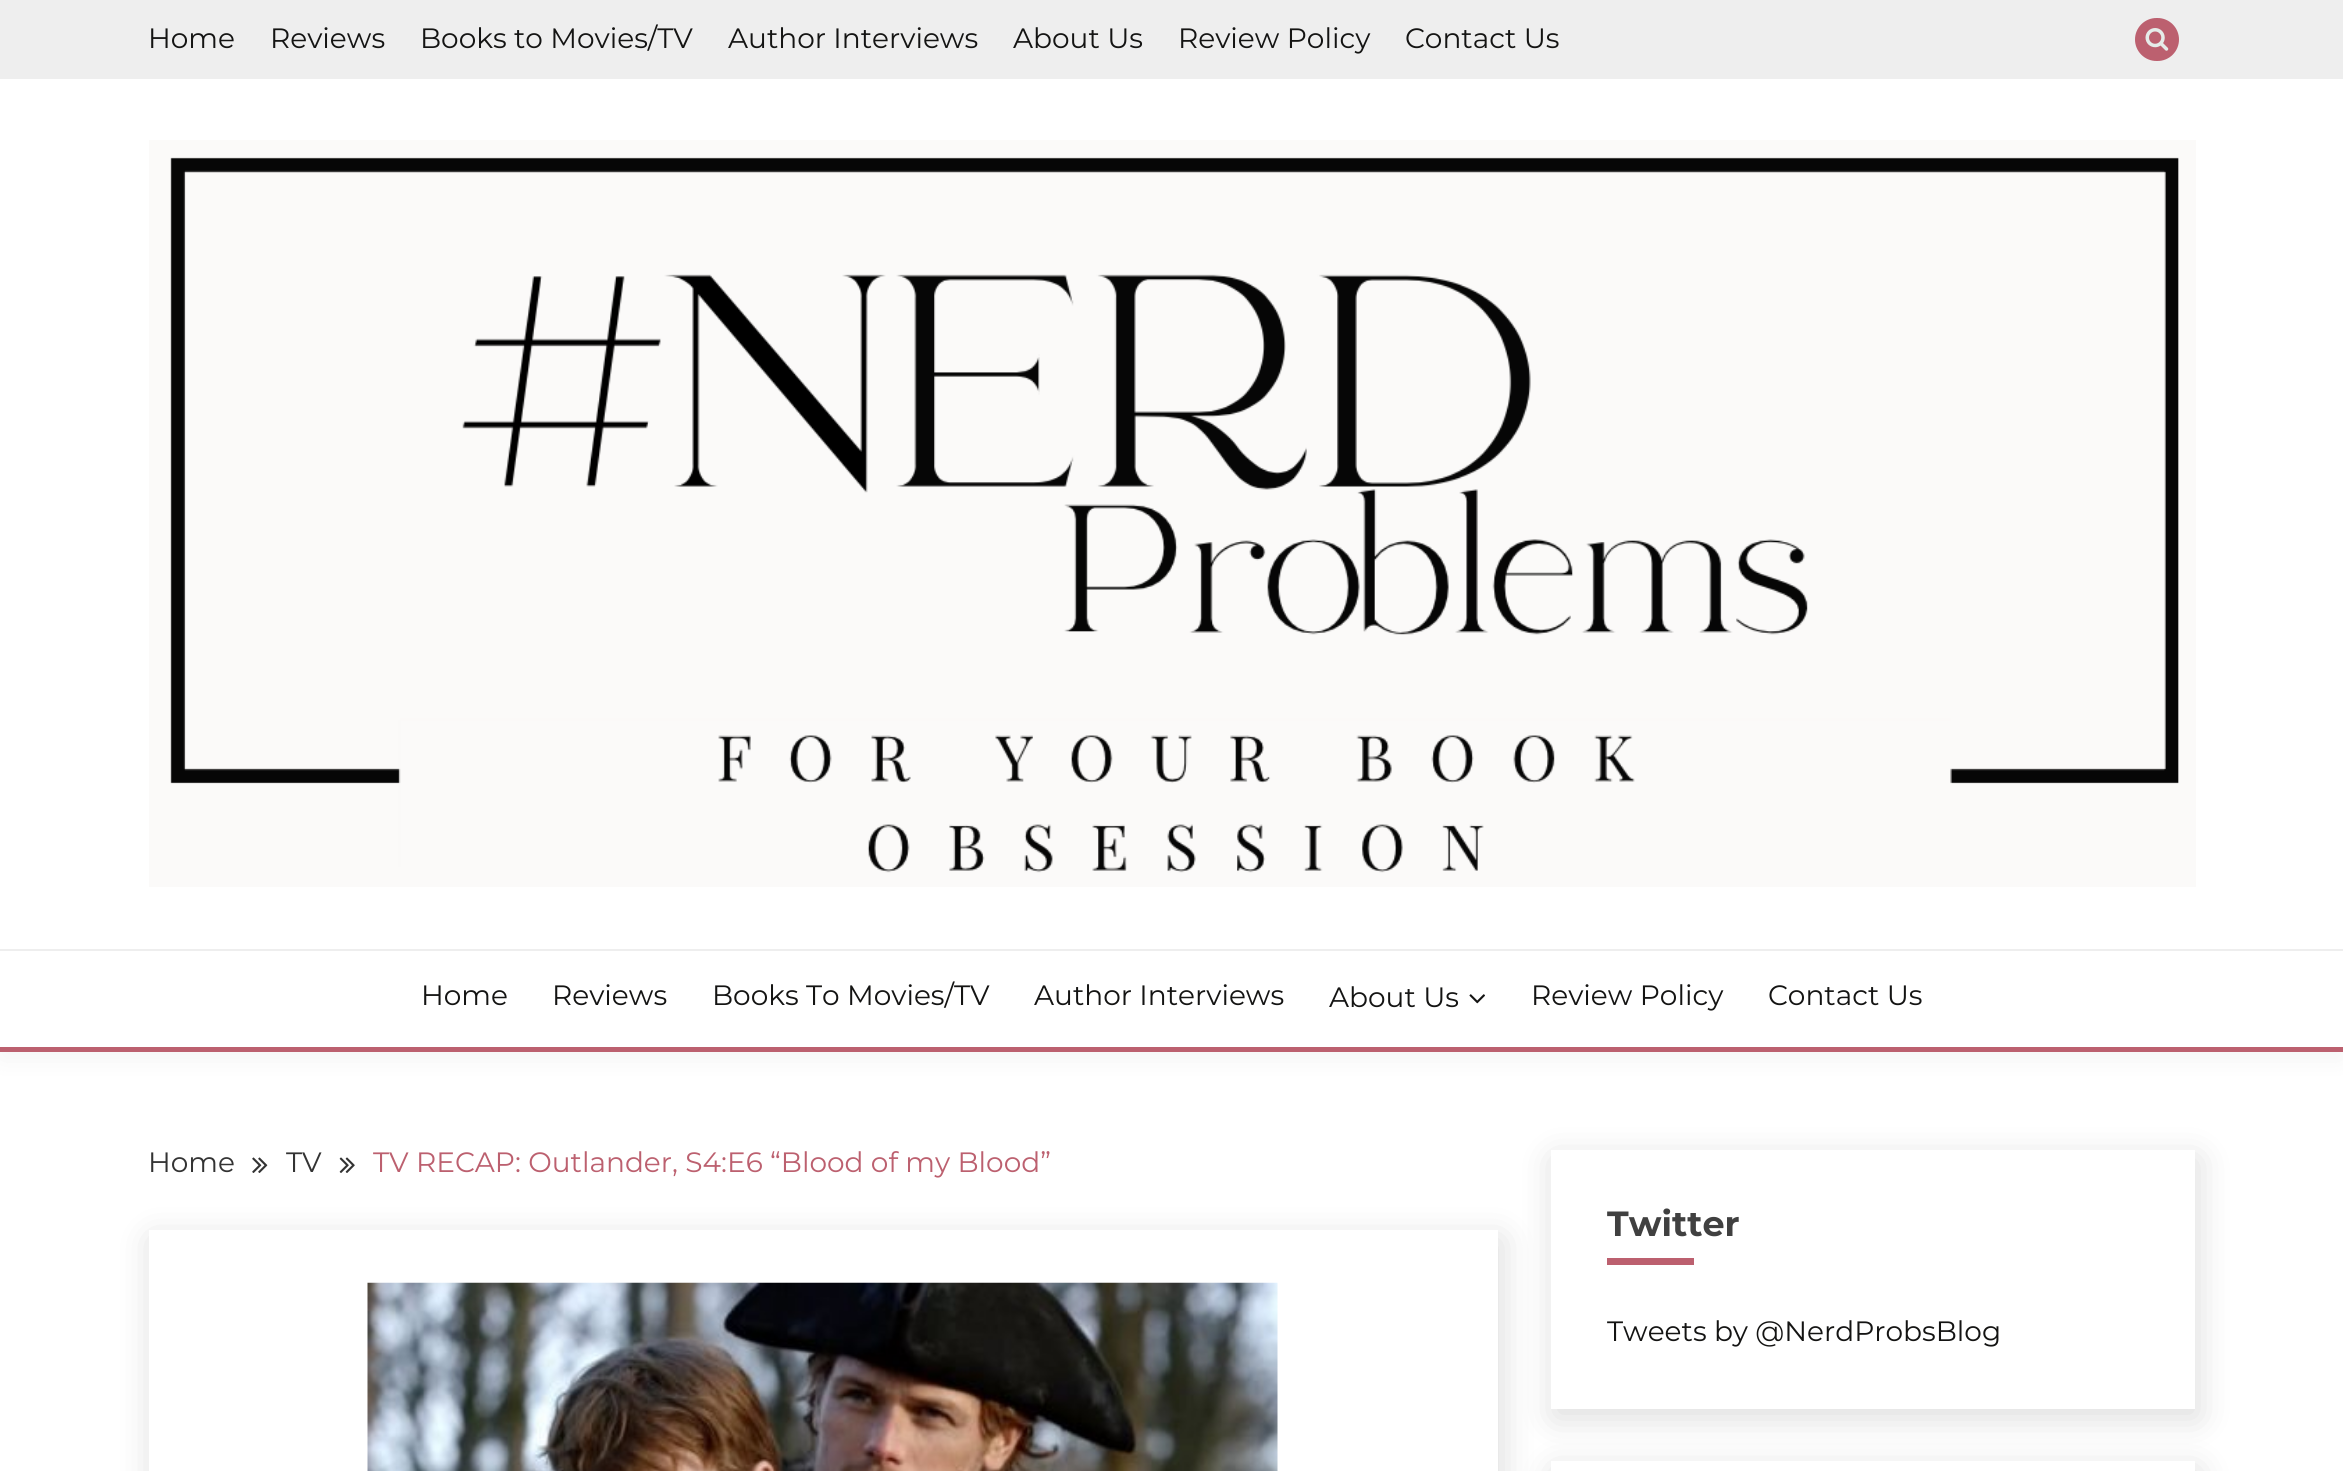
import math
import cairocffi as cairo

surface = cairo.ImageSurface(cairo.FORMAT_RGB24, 2343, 1471)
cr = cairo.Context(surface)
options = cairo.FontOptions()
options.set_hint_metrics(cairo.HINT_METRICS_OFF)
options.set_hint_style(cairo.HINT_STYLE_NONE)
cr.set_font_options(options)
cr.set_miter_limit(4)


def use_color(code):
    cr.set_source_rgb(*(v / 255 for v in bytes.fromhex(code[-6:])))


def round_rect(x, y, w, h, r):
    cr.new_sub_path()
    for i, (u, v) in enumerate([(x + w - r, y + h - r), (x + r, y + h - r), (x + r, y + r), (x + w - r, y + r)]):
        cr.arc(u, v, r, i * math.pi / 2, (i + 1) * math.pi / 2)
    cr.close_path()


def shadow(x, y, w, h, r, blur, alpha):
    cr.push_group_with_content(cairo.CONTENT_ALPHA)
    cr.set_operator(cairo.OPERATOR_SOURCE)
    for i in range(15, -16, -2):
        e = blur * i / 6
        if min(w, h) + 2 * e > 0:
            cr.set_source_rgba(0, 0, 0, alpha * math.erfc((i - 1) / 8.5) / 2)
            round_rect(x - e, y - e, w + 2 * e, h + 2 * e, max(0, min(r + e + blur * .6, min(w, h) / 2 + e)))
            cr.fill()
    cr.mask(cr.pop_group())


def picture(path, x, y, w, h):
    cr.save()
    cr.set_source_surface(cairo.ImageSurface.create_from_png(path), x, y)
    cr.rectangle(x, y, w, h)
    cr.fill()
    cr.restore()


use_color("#ffffff")
cr.paint()
use_color("#000000")
shadow(0, 9, 2343, 1052, 0, 13, 0.04)
use_color("#ffffff")
cr.rectangle(0, 79, 2343, 968)
cr.fill()
use_color("#eeeeee")
cr.rectangle(0, 0, 2343, 79)
cr.fill()
cr.select_font_face("Montserrat")
cr.set_font_size(28)
use_color("#141413")
cr.move_to(148, 48)
cr.show_text("Home")
cr.move_to(270, 48)
cr.show_text("Reviews")
cr.move_to(420, 48)
cr.show_text("Books to Movies/TV")
cr.move_to(728, 48)
cr.show_text("Author Interviews")
cr.move_to(1013, 48)
cr.show_text("About Us")
cr.move_to(1178, 48)
cr.show_text("Review Policy")
cr.move_to(1405, 48)
cr.show_text("Contact Us")
use_color("#bc606f")
round_rect(2135, 18, 44, 43, 21.5)
cr.fill()
picture("img1.png", 2145, 28, 24, 23)
use_color("#eeeeee")
cr.rectangle(0, 949, 2343, 2)
cr.fill()
picture("img2.png", 149, 140, 2047, 747)
use_color("#bc606f")
cr.rectangle(0, 1047, 2343, 5)
cr.fill()
use_color("#141413")
cr.move_to(421, 1005)
cr.show_text("Home")
cr.move_to(552, 1005)
cr.show_text("Reviews")
cr.move_to(712, 1005)
cr.show_text("Books To Movies/TV")
cr.move_to(1034, 1005)
cr.show_text("Author Interviews")
cr.move_to(1329, 1007)
cr.show_text("About Us")
picture("img3.png", 1469, 994, 16, 10)
cr.move_to(1531, 1005)
cr.show_text("Review Policy")
cr.move_to(1768, 1005)
cr.show_text("Contact Us")
use_color("#333333")
cr.move_to(148, 1172)
cr.show_text("Home")
picture("img4.png", 252, 1157, 16, 16)
cr.move_to(286, 1172)
cr.show_text("TV")
picture("img5.png", 339, 1157, 16, 16)
use_color("#bc606f")
cr.move_to(373, 1172)
cr.show_text("TV RECAP: Outlander, S4:E6 “Blood of my Blood”")
use_color("#000000")
shadow(152, 1239, 1350, 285, 0, 17.5, 0.14)
use_color("#ffffff")
cr.rectangle(149, 1230, 1349, 241)
cr.fill()
picture("img6.png", 367, 1282, 911, 189)
use_color("#000000")
shadow(1554, 1159, 644, 259, 0, 17.5, 0.14)
use_color("#ffffff")
cr.rectangle(1551, 1150, 644, 259)
cr.fill()
cr.select_font_face("Montserrat", cairo.FONT_SLANT_NORMAL, cairo.FONT_WEIGHT_BOLD)
cr.set_font_size(35)
use_color("#404040")
cr.move_to(1607, 1236)
cr.show_text("Twitter")
use_color("#bc606f")
cr.rectangle(1607, 1258, 87, 7)
cr.fill()
cr.select_font_face("Montserrat")
cr.set_font_size(28)
use_color("#141413")
cr.move_to(1607, 1341)
cr.show_text("Tweets by @NerdProbsBlog")
use_color("#000000")
shadow(1554, 1470, 644, 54, 0, 17.5, 0.14)
use_color("#ffffff")
cr.rectangle(1551, 1461, 644, 10)
cr.fill()
surface.write_to_png("result.png")
